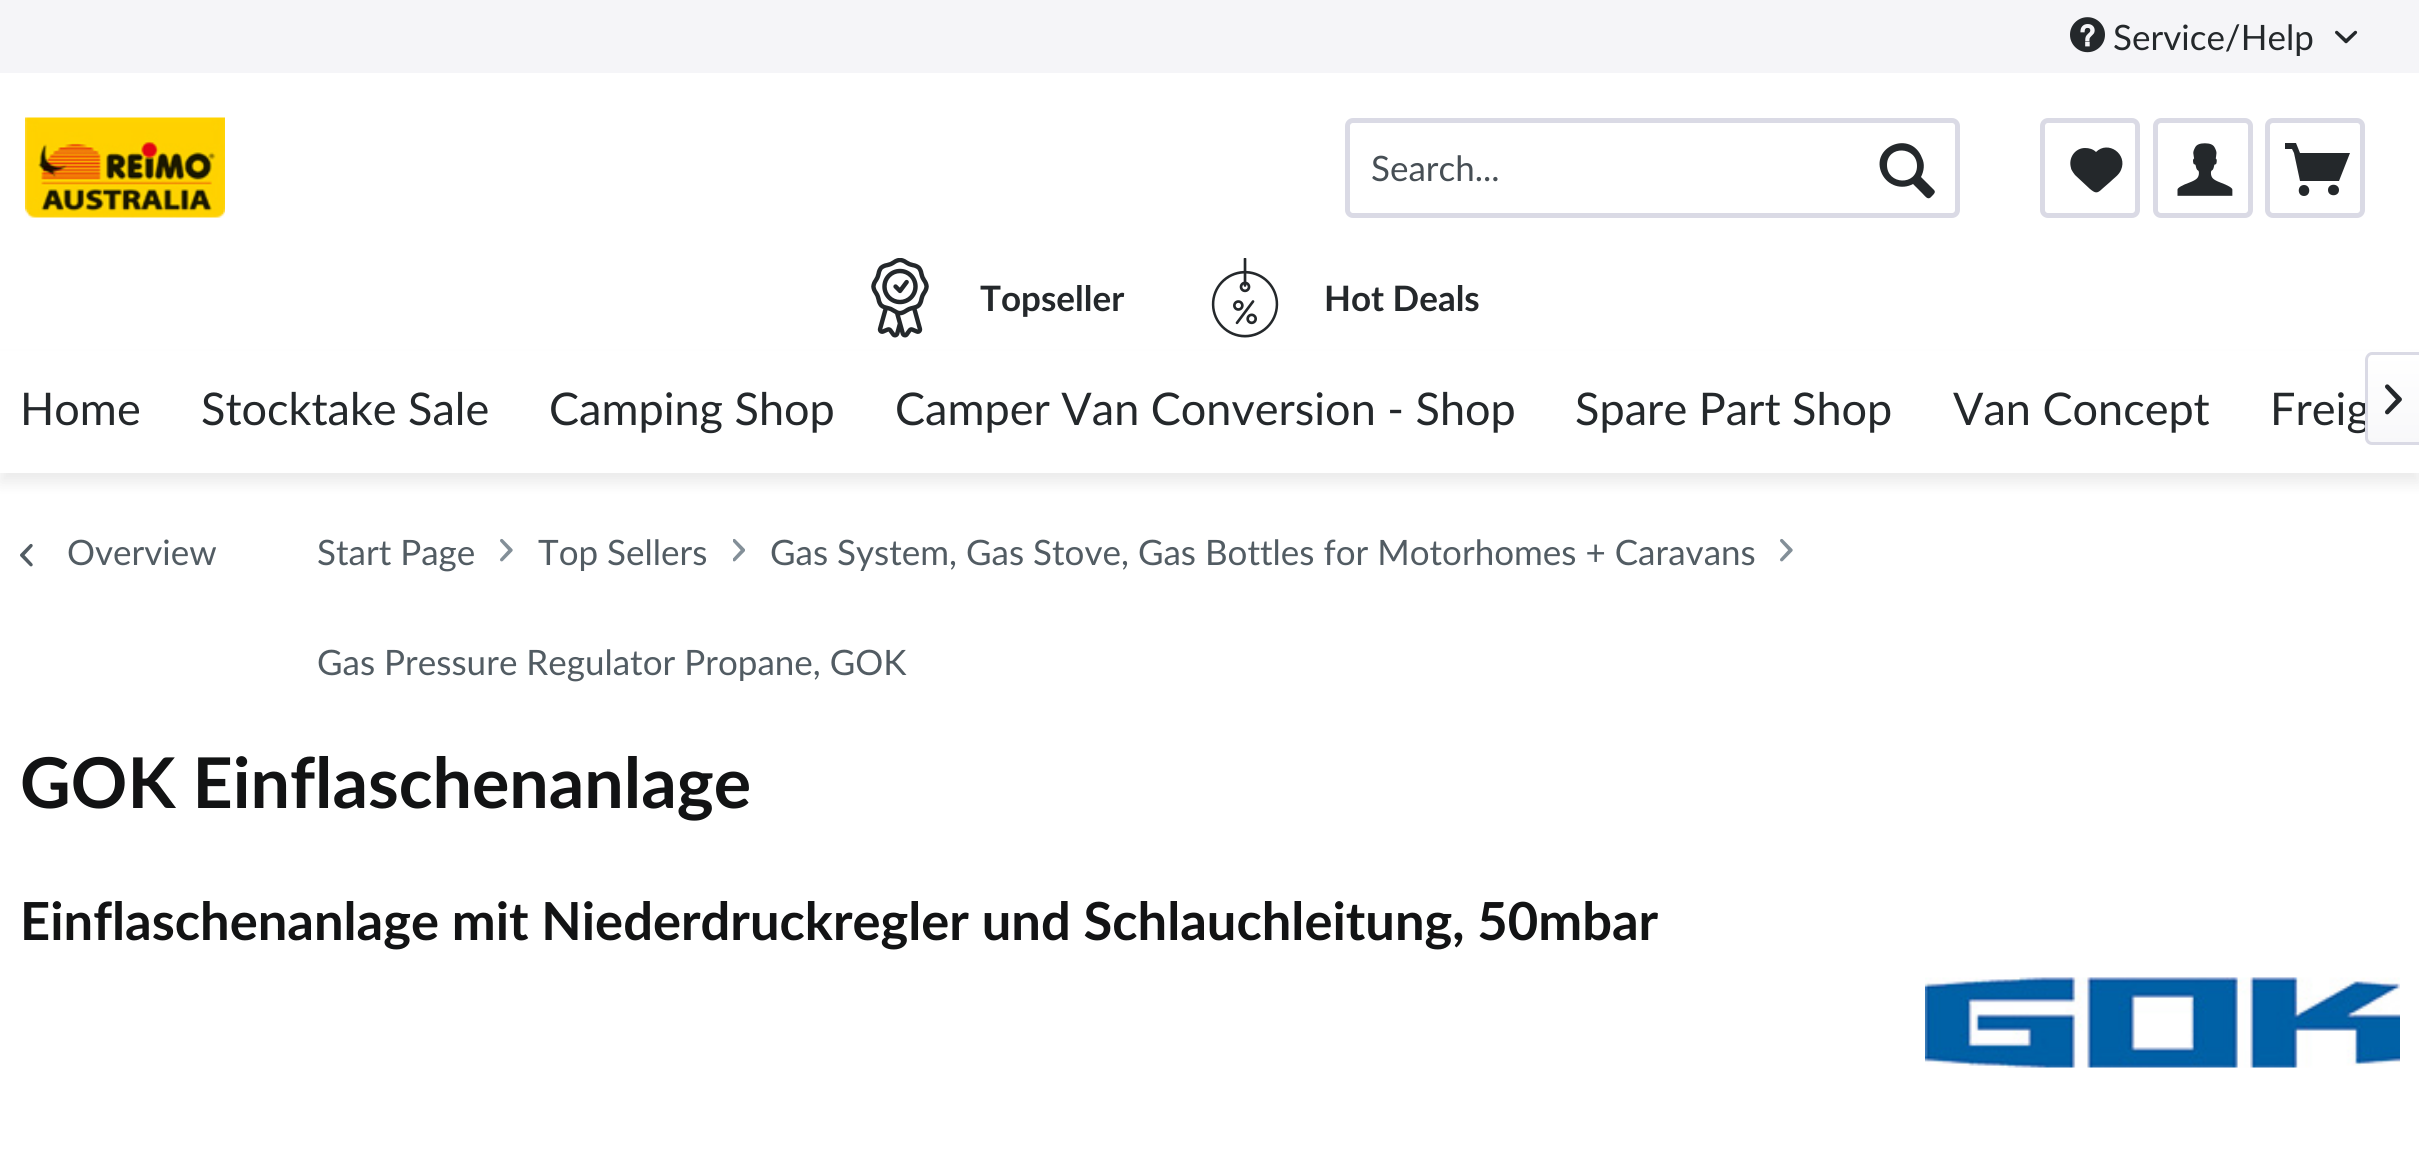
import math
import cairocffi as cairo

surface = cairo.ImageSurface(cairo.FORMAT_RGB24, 2419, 1149)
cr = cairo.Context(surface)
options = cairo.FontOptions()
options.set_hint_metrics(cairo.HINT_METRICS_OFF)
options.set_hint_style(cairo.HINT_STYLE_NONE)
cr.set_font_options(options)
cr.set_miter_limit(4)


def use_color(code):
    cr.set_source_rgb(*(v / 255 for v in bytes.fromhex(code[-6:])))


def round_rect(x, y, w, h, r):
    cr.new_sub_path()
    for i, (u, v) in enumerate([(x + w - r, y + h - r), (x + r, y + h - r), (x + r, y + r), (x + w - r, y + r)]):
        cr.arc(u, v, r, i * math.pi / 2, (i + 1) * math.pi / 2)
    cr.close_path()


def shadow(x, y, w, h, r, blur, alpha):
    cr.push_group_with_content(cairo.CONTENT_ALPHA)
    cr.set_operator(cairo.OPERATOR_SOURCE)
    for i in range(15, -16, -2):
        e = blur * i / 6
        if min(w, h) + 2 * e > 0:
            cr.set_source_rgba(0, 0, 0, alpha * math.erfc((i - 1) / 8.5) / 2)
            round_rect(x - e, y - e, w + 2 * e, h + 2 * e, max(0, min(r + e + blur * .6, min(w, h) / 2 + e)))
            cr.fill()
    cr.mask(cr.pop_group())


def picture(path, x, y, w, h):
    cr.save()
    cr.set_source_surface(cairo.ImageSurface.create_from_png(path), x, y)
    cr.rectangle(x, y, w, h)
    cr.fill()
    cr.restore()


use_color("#ffffff")
cr.paint()
use_color("#f5f5f8")
cr.rectangle(0, 0, 2419, 73)
cr.fill()
picture("img1.png", 2070, 17, 35, 36)
cr.select_font_face("Lato")
cr.set_font_size(35)
use_color("#24282b")
cr.move_to(2113, 50)
cr.show_text("Service/Help")
picture("img2.png", 2335, 30, 23, 14)
picture("img3.png", 25, 117, 200, 101)
round_rect(1347.5, 120.5, 610, 95, 5.5)
use_color("#dadae5")
cr.set_line_width(5)
cr.stroke()
use_color("#474f55")
cr.move_to(1371, 181)
cr.show_text("Search...")
use_color("#24282b")
cr.new_path()
cr.move_to(1934, 190)
cr.line_to(1921, 177)
cr.curve_to(1924, 171, 1925, 164, 1922, 158)
cr.curve_to(1911, 129, 1869, 147, 1882, 174)
cr.curve_to(1888, 186, 1902, 190, 1913, 184)
cr.line_to(1922, 193)
cr.curve_to(1926, 197, 1928, 201, 1932, 196)
cr.curve_to(1934, 194, 1936, 192, 1934, 190)
cr.close_path()
cr.move_to(1887, 165)
cr.curve_to(1887, 145, 1917, 146, 1917, 166)
cr.curve_to(1917, 186, 1887, 185, 1887, 165)
cr.close_path()
cr.fill()
round_rect(2042.5, 120.5, 95, 95, 5.5)
use_color("#dadae5")
cr.stroke()
use_color("#24282b")
cr.new_path()
cr.move_to(2085, 148)
cr.curve_to(2075, 148, 2068, 158, 2071, 168)
cr.curve_to(2071, 170, 2075, 175, 2075, 175)
cr.line_to(2090, 189)
cr.curve_to(2095, 193, 2097, 194, 2102, 189)
cr.line_to(2110, 182)
cr.curve_to(2114, 178, 2119, 175, 2121, 170)
cr.curve_to(2128, 154, 2108, 140, 2096, 152)
cr.curve_to(2093, 149, 2089, 148, 2085, 148)
cr.close_path()
cr.fill()
round_rect(2155.5, 120.5, 95, 95, 5.5)
use_color("#dadae5")
cr.stroke()
picture("img4.png", 2177, 143, 56, 53)
round_rect(2267.5, 120.5, 95, 95, 5.5)
cr.stroke()
use_color("#24282b")
cr.new_path()
cr.move_to(2300, 181)
cr.line_to(2339, 181)
cr.line_to(2350, 153)
cr.line_to(2300, 153)
cr.line_to(2296, 143)
cr.line_to(2285, 143)
cr.line_to(2285, 149)
cr.line_to(2292, 149)
cr.line_to(2294, 153)
cr.close_path()
cr.move_to(2304, 185)
cr.curve_to(2297, 185, 2297, 196, 2304, 196)
cr.curve_to(2311, 196, 2311, 185, 2304, 185)
cr.close_path()
cr.move_to(2339, 190)
cr.curve_to(2339, 197, 2328, 197, 2328, 190)
cr.curve_to(2328, 183, 2339, 183, 2339, 190)
cr.close_path()
cr.fill()
picture("img5.png", 871, 258, 58, 80)
cr.select_font_face("Lato", cairo.FONT_SLANT_NORMAL, cairo.FONT_WEIGHT_BOLD)
cr.move_to(980, 311)
cr.show_text("Topseller")
picture("img6.png", 1211, 258, 68, 80)
cr.move_to(1324, 311)
cr.show_text("Hot Deals")
use_color("#000000")
shadow(0, 360, 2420, 123, 0, 7.5, 0.08)
use_color("#ffffff")
cr.rectangle(0, 351, 2419, 122)
cr.fill()
cr.select_font_face("Lato")
cr.set_font_size(45)
use_color("#24282b")
cr.move_to(20, 425)
cr.show_text("Home")
cr.move_to(201, 425)
cr.show_text("Stocktake Sale")
cr.move_to(549, 425)
cr.show_text("Camping Shop")
cr.move_to(895, 425)
cr.show_text("Camper Van Conversion - Shop")
cr.move_to(1575, 425)
cr.show_text("Spare Part Shop")
cr.move_to(1953, 425)
cr.show_text("Van Concept")
cr.move_to(2270, 425)
cr.show_text("Freig")
gradient = cairo.LinearGradient(2394, 355, 2394, 443)
gradient.add_color_stop_rgba(0, 1, 1, 1, 1)
gradient.add_color_stop_rgba(1, 0.973, 0.973, 0.98, 1)
cr.set_source(gradient)
cr.new_path()
cr.move_to(2373, 355)
cr.line_to(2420, 355)
cr.line_to(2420, 443)
cr.line_to(2373, 443)
cr.curve_to(2370, 443, 2368, 441, 2368, 438)
cr.line_to(2368, 360)
cr.curve_to(2368, 357, 2370, 355, 2373, 355)
cr.close_path()
cr.fill()
use_color("#dadae5")
cr.set_fill_rule(cairo.FILL_RULE_EVEN_ODD)
cr.new_path()
cr.move_to(2372, 352)
cr.line_to(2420, 352)
cr.line_to(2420, 445)
cr.line_to(2372, 445)
cr.curve_to(2368, 445, 2365, 442, 2365, 438)
cr.line_to(2365, 360)
cr.curve_to(2365, 356, 2368, 352, 2372, 352)
cr.close_path()
cr.move_to(2372, 355)
cr.line_to(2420, 355)
cr.line_to(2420, 442)
cr.line_to(2372, 442)
cr.curve_to(2370, 442, 2368, 440, 2368, 438)
cr.line_to(2368, 360)
cr.curve_to(2368, 357, 2370, 355, 2372, 355)
cr.close_path()
cr.fill()
picture("img7.png", 2385, 384, 17, 31)
picture("img8.png", 20, 543, 13, 24)
cr.set_font_size(35)
use_color("#525c63")
cr.move_to(67, 565)
cr.show_text("Overview")
cr.move_to(317, 565)
cr.show_text("Start Page")
picture("img9.png", 500, 538, 13, 24)
cr.move_to(538, 565)
cr.show_text("Top Sellers")
picture("img10.png", 733, 538, 12, 24)
cr.move_to(770, 565)
cr.show_text("Gas System, Gas Stove, Gas Bottles for Motorhomes + Caravans")
picture("img9.png", 1780, 538, 13, 24)
cr.move_to(317, 675)
cr.show_text("Gas Pressure Regulator Propane, GOK")
cr.select_font_face("Lato", cairo.FONT_SLANT_NORMAL, cairo.FONT_WEIGHT_BOLD)
cr.set_font_size(70)
use_color("#121314")
cr.move_to(20, 808)
cr.show_text("GOK Einflaschenanlage")
cr.set_font_size(52.5)
cr.move_to(20, 940)
cr.show_text("Einflaschenanlage mit Niederdruckregler und Schlauchleitung, 50mbar")
picture("img11.png", 1925, 977, 475, 91)
surface.write_to_png("result.png")
